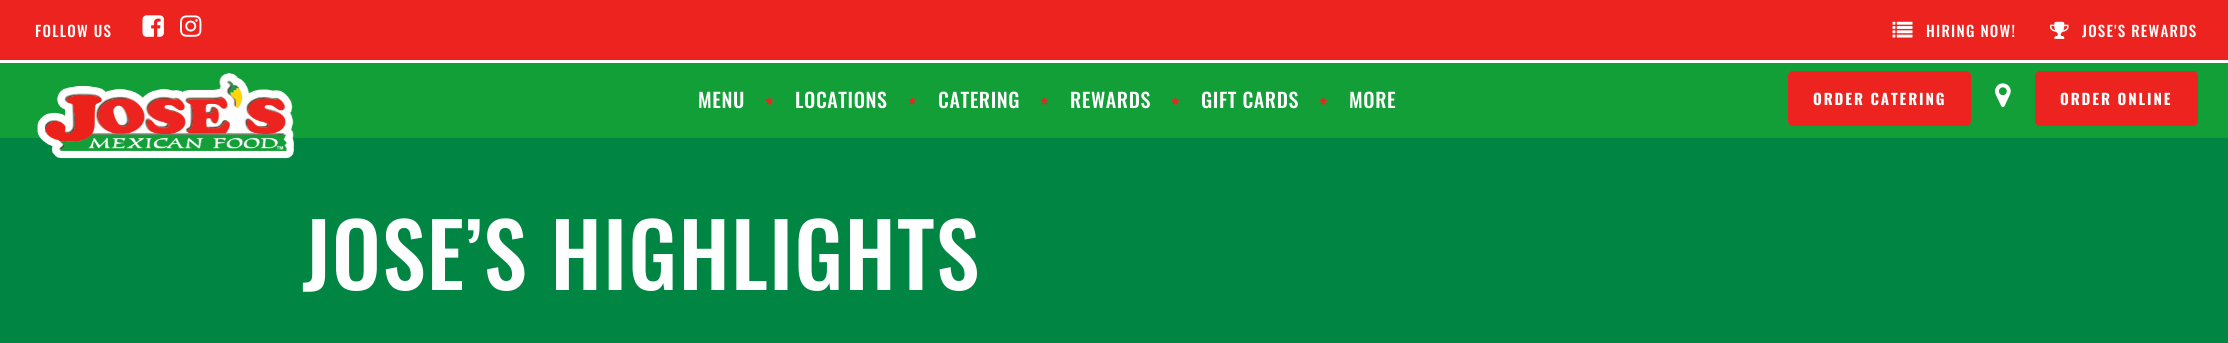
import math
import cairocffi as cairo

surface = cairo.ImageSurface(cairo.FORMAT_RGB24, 2228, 343)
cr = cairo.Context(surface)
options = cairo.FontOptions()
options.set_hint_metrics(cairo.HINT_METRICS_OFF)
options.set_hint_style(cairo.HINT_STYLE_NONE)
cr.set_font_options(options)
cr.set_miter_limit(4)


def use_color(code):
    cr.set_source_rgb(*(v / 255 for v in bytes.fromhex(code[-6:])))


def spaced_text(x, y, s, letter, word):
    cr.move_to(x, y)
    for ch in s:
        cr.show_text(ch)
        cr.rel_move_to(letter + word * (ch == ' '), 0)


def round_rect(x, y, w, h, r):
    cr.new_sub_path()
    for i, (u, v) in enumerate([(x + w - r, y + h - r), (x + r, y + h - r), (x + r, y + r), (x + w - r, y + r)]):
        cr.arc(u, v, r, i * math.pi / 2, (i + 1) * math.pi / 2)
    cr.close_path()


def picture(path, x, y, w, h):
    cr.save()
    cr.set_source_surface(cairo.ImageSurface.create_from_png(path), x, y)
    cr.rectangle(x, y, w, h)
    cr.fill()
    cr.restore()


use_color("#008543")
cr.paint()
use_color("#ec231e")
cr.rectangle(0, 0, 2228, 60)
cr.fill()
use_color("#ffffff")
cr.rectangle(0, 60, 2228, 3)
cr.fill()
cr.select_font_face("Oswald Medium")
cr.set_font_size(15)
spaced_text(35, 37, "FOLLOW US", 1.25, 0)
picture("img1.png", 142, 15, 22, 22)
picture("img2.png", 180, 15, 22, 22)
picture("img3.png", 1892, 21, 21, 17)
spaced_text(1926, 37, "HIRING NOW!", 1.25, 0)
picture("img4.png", 2050, 21, 19, 18)
spaced_text(2082, 37, "JOSE'S REWARDS", 1.25, 0)
use_color("#139f37")
cr.rectangle(0, 63, 2228, 75)
cr.fill()
picture("img5.png", 37, 73, 257, 86)
cr.set_font_size(20)
use_color("#ffffff")
spaced_text(698, 108, "MENU", 0.6, 0)
use_color("#ec231e")
spaced_text(765, 114, "*", 0.6, 0)
use_color("#ffffff")
spaced_text(795, 108, "LOCATIONS", 0.6, 0)
use_color("#ec231e")
spaced_text(908, 114, "*", 0.6, 0)
use_color("#ffffff")
spaced_text(938, 108, "CATERING", 0.6, 0)
use_color("#ec231e")
spaced_text(1040, 114, "*", 0.6, 0)
use_color("#ffffff")
spaced_text(1070, 108, "REWARDS", 0.6, 0)
use_color("#ec231e")
spaced_text(1171, 114, "*", 0.6, 0)
use_color("#ffffff")
spaced_text(1201, 108, "GIFT CARDS", 0.6, 0)
use_color("#ec231e")
spaced_text(1319, 114, "*", 0.6, 0)
use_color("#ffffff")
spaced_text(1349, 108, "MORE", 0.6, 0)
use_color("#ec231e")
round_rect(1788, 71, 183, 55, 5)
cr.fill()
cr.select_font_face("Oswald", cairo.FONT_SLANT_NORMAL, cairo.FONT_WEIGHT_BOLD)
cr.set_font_size(15)
use_color("#ffffff")
spaced_text(1813, 105, "ORDER CATERING", 1.9, 0)
picture("img6.png", 1995, 83, 16, 24)
use_color("#ec231e")
round_rect(2035, 71, 163, 55, 5)
cr.fill()
use_color("#ffffff")
spaced_text(2060, 105, "ORDER ONLINE", 1.9, 0)
cr.select_font_face("Oswald Medium")
cr.set_font_size(87.5)
spaced_text(302, 290, "JOSE’S HIGHLIGHTS", 1.25, 0)
surface.write_to_png("result.png")
